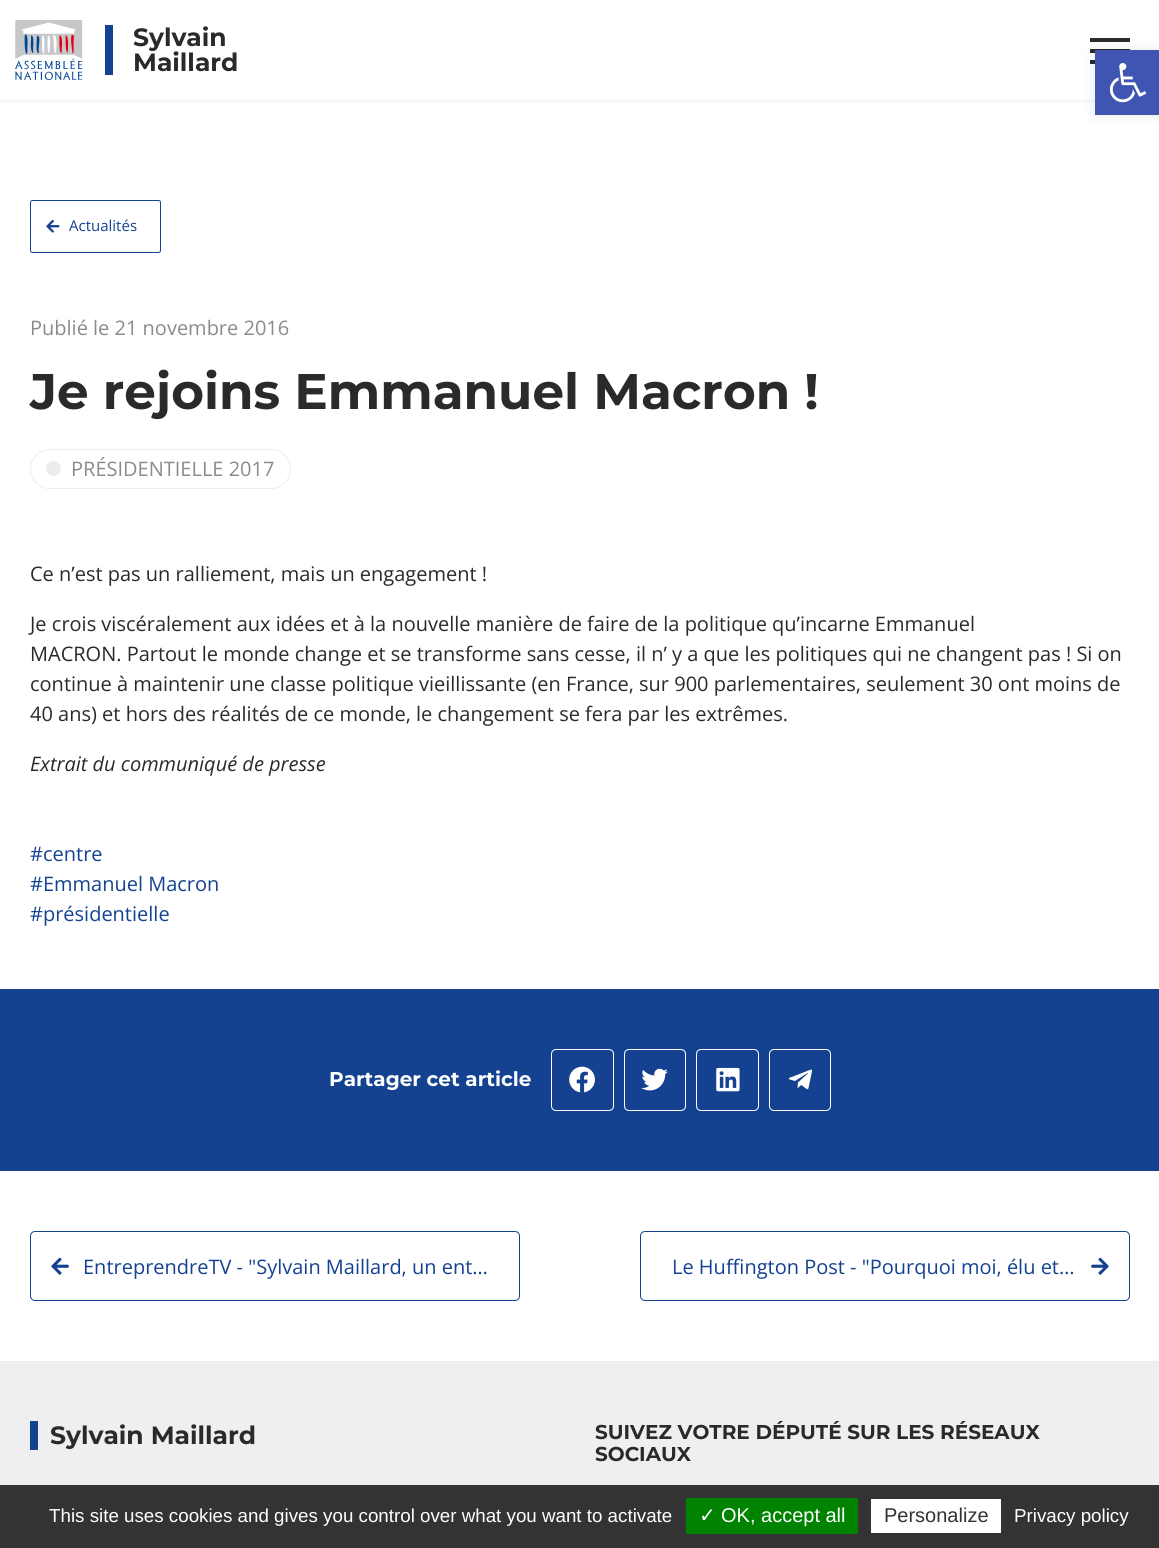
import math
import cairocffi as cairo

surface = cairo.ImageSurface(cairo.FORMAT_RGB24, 1159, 1548)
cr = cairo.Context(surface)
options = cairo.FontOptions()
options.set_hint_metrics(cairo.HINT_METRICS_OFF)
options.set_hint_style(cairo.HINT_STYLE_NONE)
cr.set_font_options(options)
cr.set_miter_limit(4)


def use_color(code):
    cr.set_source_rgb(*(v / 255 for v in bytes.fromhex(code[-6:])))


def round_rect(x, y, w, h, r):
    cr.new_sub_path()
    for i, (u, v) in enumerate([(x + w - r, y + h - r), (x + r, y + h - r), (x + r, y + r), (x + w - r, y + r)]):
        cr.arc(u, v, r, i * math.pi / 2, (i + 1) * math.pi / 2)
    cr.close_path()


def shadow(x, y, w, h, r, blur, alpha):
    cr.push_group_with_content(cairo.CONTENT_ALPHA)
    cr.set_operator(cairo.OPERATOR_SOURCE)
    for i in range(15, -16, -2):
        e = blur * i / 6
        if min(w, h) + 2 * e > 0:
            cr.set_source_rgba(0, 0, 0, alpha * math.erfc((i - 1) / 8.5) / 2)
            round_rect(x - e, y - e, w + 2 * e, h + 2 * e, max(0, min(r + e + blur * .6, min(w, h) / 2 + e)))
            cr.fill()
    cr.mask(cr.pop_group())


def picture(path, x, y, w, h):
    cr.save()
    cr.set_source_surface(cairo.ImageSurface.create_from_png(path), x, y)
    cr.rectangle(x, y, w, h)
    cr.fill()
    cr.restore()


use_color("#ffffff")
cr.paint()
use_color("#000000")
shadow(0, 0, 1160, 100, 0, 3, 0.1)
use_color("#ffffff")
cr.rectangle(0, 0, 1159, 100)
cr.fill()
picture("img1.png", 15, 20, 68, 60)
use_color("#144291")
cr.rectangle(105, 25, 8, 50)
cr.fill()
cr.select_font_face("Montserrat", cairo.FONT_SLANT_NORMAL, cairo.FONT_WEIGHT_BOLD)
cr.set_font_size(25)
use_color("#2a2a2a")
cr.move_to(133, 46)
cr.show_text("Sylvain")
cr.move_to(133, 71)
cr.show_text("Maillard")
cr.rectangle(1090, 38, 40, 4)
cr.fill()
cr.rectangle(1090, 49, 40, 4)
cr.fill()
cr.rectangle(1090, 60, 5, 4)
cr.fill()
use_color("#000000")
shadow(1095, 50, 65, 65, 0, 6, 0.1)
use_color("#4054b2")
cr.rectangle(1095, 50, 64, 65)
cr.fill()
picture("img2.png", 1109, 63, 38, 40)
round_rect(30.5, 200.5, 130, 52, 2)
use_color("#144291")
cr.set_line_width(1)
cr.stroke()
picture("img3.png", 46, 219, 14, 14)
cr.select_font_face("Open Sans")
cr.set_font_size(15)
cr.move_to(69, 231)
cr.show_text("Actualités")
cr.set_font_size(20)
use_color("#8b8b8b")
cr.move_to(30, 335)
cr.show_text("Publié le 21 novembre 2016")
cr.select_font_face("Montserrat", cairo.FONT_SLANT_NORMAL, cairo.FONT_WEIGHT_BOLD)
cr.set_font_size(50)
use_color("#2a2a2a")
cr.move_to(30, 409)
cr.show_text("Je rejoins Emmanuel Macron !")
round_rect(30.5, 449.5, 260, 39, 19.5)
use_color("#ededed")
cr.stroke()
cr.arc(53.5, 468.5, 7.5, 0, 2 * math.pi)
cr.fill()
cr.select_font_face("Open Sans")
cr.set_font_size(20)
use_color("#8b8b8b")
cr.move_to(71, 476)
cr.show_text("PRÉSIDENTIELLE 2017")
use_color("#2a2a2a")
cr.move_to(30, 581)
cr.show_text("Ce n’est pas un ralliement, mais un engagement !")
cr.move_to(30, 631)
cr.show_text("Je crois viscéralement aux idées et à la nouvelle manière de faire de la politique qu’incarne Emmanuel")
cr.move_to(30, 661)
cr.show_text("MACRON. Partout le monde change et se transforme sans cesse, il n’ y a que les politiques qui ne changent pas ! Si on")
cr.move_to(30, 691)
cr.show_text("continue à maintenir une classe politique vieillissante (en France, sur 900 parlementaires, seulement 30 ont moins de")
cr.move_to(30, 721)
cr.show_text("40 ans) et hors des réalités de ce monde, le changement se fera par les extrêmes.")
cr.select_font_face("Open Sans", cairo.FONT_SLANT_ITALIC)
cr.move_to(30, 771)
cr.show_text("Extrait du communiqué de presse")
cr.select_font_face("Open Sans")
use_color("#144291")
cr.move_to(30, 861)
cr.show_text("#centre")
cr.move_to(30, 891)
cr.show_text("#Emmanuel Macron")
cr.move_to(30, 921)
cr.show_text("#présidentielle")
cr.rectangle(0, 989, 1159, 182)
cr.fill()
cr.select_font_face("Montserrat", cairo.FONT_SLANT_NORMAL, cairo.FONT_WEIGHT_BOLD)
use_color("#ffffff")
cr.move_to(329, 1086)
cr.show_text("Partager cet article")
round_rect(551.5, 1049.5, 62, 61, 4.5)
cr.stroke()
picture("img4.png", 569, 1066, 26, 27)
round_rect(624.5, 1049.5, 61, 61, 4.5)
cr.stroke()
picture("img5.png", 641, 1068, 27, 23)
round_rect(696.5, 1049.5, 62, 61, 4.5)
cr.stroke()
picture("img6.png", 716, 1067, 24, 25)
round_rect(769.5, 1049.5, 61, 61, 4.5)
cr.stroke()
picture("img7.png", 788, 1069, 24, 21)
round_rect(30.5, 1231.5, 489, 69, 4.5)
use_color("#144291")
cr.stroke()
picture("img8.png", 51, 1257, 18, 18)
cr.select_font_face("Open Sans")
cr.move_to(83, 1274)
cr.show_text("EntreprendreTV - \"Sylvain Maillard, un ent…")
round_rect(640.5, 1231.5, 489, 69, 4.5)
cr.stroke()
cr.move_to(672, 1274)
cr.show_text("Le Huffington Post - \"Pourquoi moi, élu et…")
picture("img9.png", 1091, 1257, 18, 18)
use_color("#efefef")
cr.rectangle(0, 1361, 1159, 124)
cr.fill()
use_color("#144291")
cr.rectangle(30, 1421, 8, 29)
cr.fill()
cr.select_font_face("Montserrat", cairo.FONT_SLANT_NORMAL, cairo.FONT_WEIGHT_BOLD)
cr.set_font_size(25)
use_color("#2a2a2a")
cr.move_to(50, 1444)
cr.show_text("Sylvain Maillard")
cr.set_font_size(20)
cr.move_to(595, 1439)
cr.show_text("SUIVEZ VOTRE DÉPUTÉ SUR LES RÉSEAUX")
cr.move_to(595, 1461)
cr.show_text("SOCIAUX")
use_color("#333333")
cr.rectangle(0, 1485, 1159, 63)
cr.fill()
cr.select_font_face("Liberation Sans")
cr.set_font_size(18.75)
use_color("#ffffff")
cr.move_to(49, 1522)
cr.show_text("This site uses cookies and gives you control over what you want to activate")
use_color("#008300")
cr.rectangle(686, 1498, 172, 36)
cr.fill()
cr.select_font_face("DejaVu Sans")
cr.set_font_size(20)
use_color("#ffffff")
cr.move_to(699, 1522)
cr.show_text("✓")
cr.select_font_face("Liberation Sans")
cr.move_to(721, 1522)
cr.show_text("OK, accept all")
cr.rectangle(871, 1499, 130, 34)
cr.fill()
use_color("#333333")
cr.move_to(884, 1522)
cr.show_text("Personalize")
cr.set_font_size(18.75)
use_color("#ffffff")
cr.move_to(1014, 1522)
cr.show_text("Privacy policy")
surface.write_to_png("result.png")
